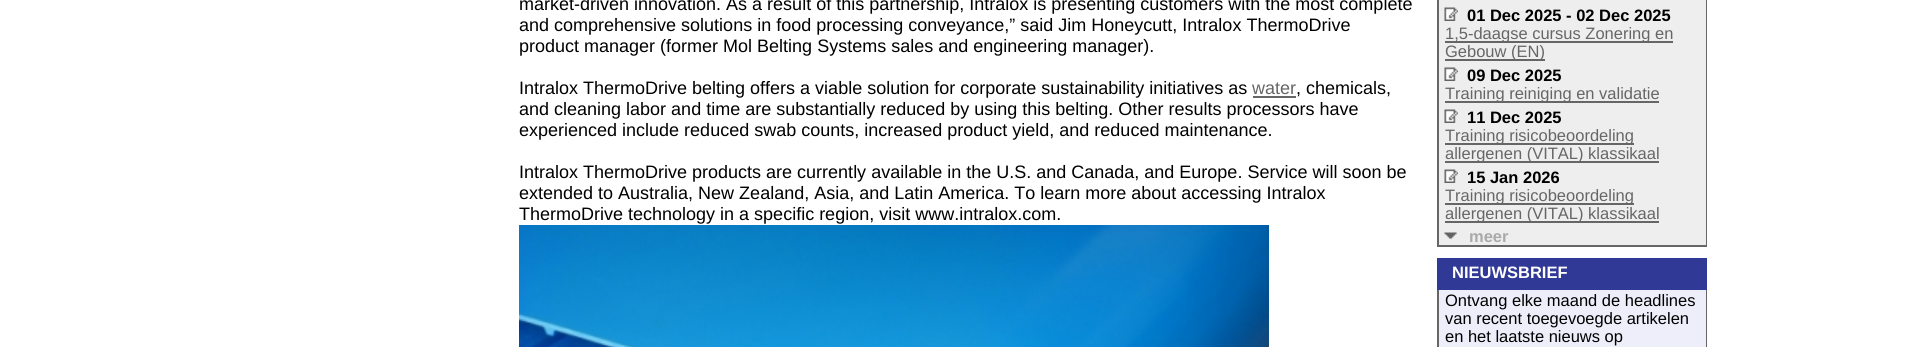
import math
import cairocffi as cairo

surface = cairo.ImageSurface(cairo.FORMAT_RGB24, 1932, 347)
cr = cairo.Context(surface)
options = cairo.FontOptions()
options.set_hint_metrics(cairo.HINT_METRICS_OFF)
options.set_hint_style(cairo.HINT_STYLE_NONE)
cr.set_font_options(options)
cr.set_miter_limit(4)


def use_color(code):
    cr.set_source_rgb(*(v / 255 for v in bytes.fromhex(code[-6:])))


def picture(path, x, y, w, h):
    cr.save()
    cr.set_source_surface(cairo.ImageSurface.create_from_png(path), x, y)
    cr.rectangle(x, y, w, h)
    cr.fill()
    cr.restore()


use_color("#ffffff")
cr.paint()
cr.select_font_face("Liberation Sans")
cr.set_font_size(18)
use_color("#000000")
cr.move_to(519, 10)
cr.show_text("market-driven innovation. As a result of this partnership, Intralox is presenting customers with the most complete")
cr.move_to(519, 31)
cr.show_text("and comprehensive solutions in food processing conveyance,” said Jim Honeycutt, Intralox ThermoDrive")
cr.move_to(519, 52)
cr.show_text("product manager (former Mol Belting Systems sales and engineering manager).")
cr.move_to(519, 94)
cr.show_text("Intralox ThermoDrive belting offers a viable solution for corporate sustainability initiatives as")
use_color("#666666")
cr.move_to(1252, 94)
cr.show_text("water")
cr.rectangle(1253, 96, 43, 2)
cr.fill()
use_color("#000000")
cr.move_to(1296, 94)
cr.show_text(", chemicals,")
cr.move_to(519, 115)
cr.show_text("and cleaning labor and time are substantially reduced by using this belting. Other results processors have")
cr.move_to(519, 136)
cr.show_text("experienced include reduced swab counts, increased product yield, and reduced maintenance.")
cr.move_to(519, 178)
cr.show_text("Intralox ThermoDrive products are currently available in the U.S. and Canada, and Europe. Service will soon be")
cr.move_to(519, 199)
cr.show_text("extended to Australia, New Zealand, Asia, and Latin America. To learn more about accessing Intralox")
cr.move_to(519, 220)
cr.show_text("ThermoDrive technology in a specific region, visit www.intralox.com.")
picture("img1.png", 519, 225, 750, 122)
use_color("#eeeeee")
cr.rectangle(1439, 0, 267, 245)
cr.fill()
use_color("#666666")
cr.rectangle(1706, 0, 1, 246)
cr.fill()
cr.rectangle(1437, 245, 270, 2)
cr.fill()
cr.rectangle(1437, 0, 2, 246)
cr.fill()
picture("img2.png", 1444, 7, 14, 14)
cr.select_font_face("Liberation Sans", cairo.FONT_SLANT_NORMAL, cairo.FONT_WEIGHT_BOLD)
cr.set_font_size(16.5)
use_color("#000000")
cr.move_to(1467, 21)
cr.show_text("01 Dec 2025 - 02 Dec 2025")
use_color("#666666")
cr.rectangle(1445, 41, 228, 2)
cr.fill()
cr.select_font_face("Liberation Sans")
cr.move_to(1445, 39)
cr.show_text("1,5-daagse cursus Zonering en")
cr.rectangle(1445, 59, 100, 2)
cr.fill()
cr.move_to(1445, 57)
cr.show_text("Gebouw (EN)")
picture("img2.png", 1444, 67, 14, 14)
cr.select_font_face("Liberation Sans", cairo.FONT_SLANT_NORMAL, cairo.FONT_WEIGHT_BOLD)
use_color("#000000")
cr.move_to(1467, 81)
cr.show_text("09 Dec 2025")
use_color("#666666")
cr.rectangle(1445, 101, 214, 2)
cr.fill()
cr.select_font_face("Liberation Sans")
cr.move_to(1445, 99)
cr.show_text("Training reiniging en validatie")
picture("img2.png", 1444, 109, 14, 14)
cr.select_font_face("Liberation Sans", cairo.FONT_SLANT_NORMAL, cairo.FONT_WEIGHT_BOLD)
use_color("#000000")
cr.move_to(1467, 123)
cr.show_text("11 Dec 2025")
use_color("#666666")
cr.rectangle(1445, 143, 189, 2)
cr.fill()
cr.select_font_face("Liberation Sans")
cr.move_to(1445, 141)
cr.show_text("Training risicobeoordeling")
cr.rectangle(1445, 161, 214, 2)
cr.fill()
cr.move_to(1445, 159)
cr.show_text("allergenen (VITAL) klassikaal")
picture("img2.png", 1444, 169, 14, 14)
cr.select_font_face("Liberation Sans", cairo.FONT_SLANT_NORMAL, cairo.FONT_WEIGHT_BOLD)
use_color("#000000")
cr.move_to(1467, 183)
cr.show_text("15 Jan 2026")
use_color("#666666")
cr.rectangle(1445, 203, 189, 2)
cr.fill()
cr.select_font_face("Liberation Sans")
cr.move_to(1445, 201)
cr.show_text("Training risicobeoordeling")
cr.rectangle(1445, 221, 214, 2)
cr.fill()
cr.move_to(1445, 219)
cr.show_text("allergenen (VITAL) klassikaal")
picture("img3.png", 1444, 232, 13, 7)
cr.select_font_face("Liberation Sans", cairo.FONT_SLANT_NORMAL, cairo.FONT_WEIGHT_BOLD)
use_color("#aaaaaa")
cr.move_to(1469, 242)
cr.show_text("meer")
use_color("#303996")
cr.rectangle(1437, 258, 270, 32)
cr.fill()
use_color("#ffffff")
cr.move_to(1452, 278)
cr.show_text("NIEUWSBRIEF")
use_color("#edeefa")
cr.rectangle(1439, 290, 267, 57)
cr.fill()
use_color("#666666")
cr.rectangle(1706, 290, 1, 57)
cr.fill()
cr.rectangle(1437, 290, 2, 57)
cr.fill()
cr.select_font_face("Liberation Sans")
use_color("#000000")
cr.move_to(1445, 306)
cr.show_text("Ontvang elke maand de headlines")
cr.move_to(1445, 324)
cr.show_text("van recent toegevoegde artikelen")
cr.move_to(1445, 342)
cr.show_text("en het laatste nieuws op")
surface.write_to_png("result.png")
